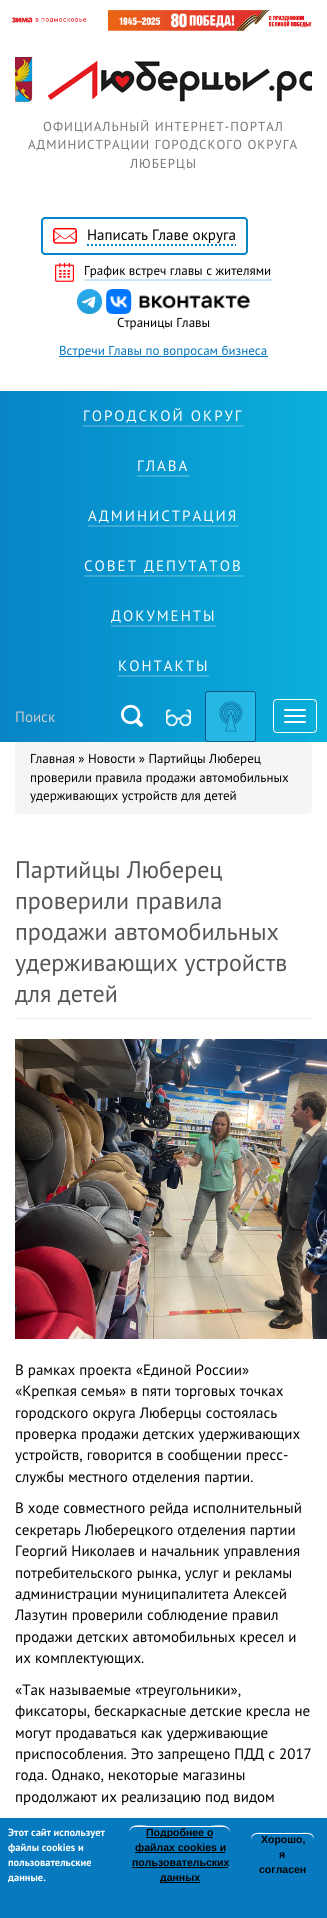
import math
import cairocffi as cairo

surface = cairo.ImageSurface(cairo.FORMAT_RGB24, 327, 1918)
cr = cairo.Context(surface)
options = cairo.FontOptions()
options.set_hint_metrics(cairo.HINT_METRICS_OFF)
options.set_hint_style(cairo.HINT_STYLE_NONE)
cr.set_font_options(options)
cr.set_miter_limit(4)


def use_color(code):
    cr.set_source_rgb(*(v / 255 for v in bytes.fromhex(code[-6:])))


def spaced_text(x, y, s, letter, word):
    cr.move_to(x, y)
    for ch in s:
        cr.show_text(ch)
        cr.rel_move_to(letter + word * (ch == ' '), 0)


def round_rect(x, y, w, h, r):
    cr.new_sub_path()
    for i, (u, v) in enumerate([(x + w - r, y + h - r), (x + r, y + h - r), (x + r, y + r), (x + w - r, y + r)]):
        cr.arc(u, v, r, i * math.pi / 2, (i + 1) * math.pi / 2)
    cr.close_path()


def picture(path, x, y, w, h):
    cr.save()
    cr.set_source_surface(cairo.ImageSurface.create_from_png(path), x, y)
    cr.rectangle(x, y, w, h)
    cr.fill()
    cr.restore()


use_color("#ffffff")
cr.paint()
picture("img1.png", 11, 17, 76, 6)
picture("img2.png", 108, 10, 204, 21)
picture("img3.png", 15, 57, 297, 46)
cr.select_font_face("PT Sans")
cr.set_font_size(13)
use_color("#777777")
spaced_text(43, 131, "ОФИЦИАЛЬНЫЙ ИНТЕРНЕТ-ПОРТАЛ", 1, 0)
spaced_text(28, 149, "АДМИНИСТРАЦИИ ГОРОДСКОГО ОКРУГА", 1, 0)
spaced_text(130, 168, "ЛЮБЕРЦЫ", 1, 0)
round_rect(42, 218, 205, 36, 3)
use_color("#0783c7")
cr.stroke()
picture("img4.png", 53, 227, 24, 17)
cr.set_font_size(15)
use_color("#000000")
cr.move_to(87, 240)
cr.show_text("Написать Главе округа")
cr.new_path()
cr.move_to(87, 245)
cr.line_to(236, 245)
use_color("#0783c7")
cr.set_dash([2, 2])
cr.stroke()
picture("img5.png", 55, 262, 19, 20)
cr.set_font_size(13)
use_color("#000000")
cr.move_to(84, 275)
cr.show_text("График встреч главы с жителями")
use_color("#cde6f4")
cr.rectangle(84, 279, 188, 2)
cr.fill()
picture("img6.png", 77, 289, 25, 25)
picture("img7.png", 106, 289, 144, 25)
use_color("#000000")
cr.move_to(117, 327)
cr.show_text("Страницы Главы")
use_color("#0074bd")
cr.rectangle(59, 356, 209, 1)
cr.fill()
cr.move_to(59, 355)
cr.show_text("Встречи Главы по вопросам бизнеса")
gradient = cairo.LinearGradient(0, 567, 327, 567)
gradient.add_color_stop_rgba(0, 0.027, 0.518, 0.78, 1)
gradient.add_color_stop_rgba(1, 0.039, 0.694, 0.859, 1)
cr.set_source(gradient)
cr.rectangle(0, 391, 327, 351)
cr.fill()
gradient = cairo.LinearGradient(0, 567, 327, 567)
gradient.add_color_stop_rgba(0, 0.145, 0.655, 0.867, 1)
gradient.add_color_stop_rgba(1, 0.153, 0.749, 0.91, 1)
cr.set_source(gradient)
cr.rectangle(205, 691, 51, 51)
cr.fill()
gradient = cairo.LinearGradient(0, 567, 327, 567)
gradient.add_color_stop_rgba(0, 0.224, 0.616, 0.824, 1)
gradient.add_color_stop_rgba(1, 0.231, 0.757, 0.886, 1)
cr.set_source(gradient)
cr.rectangle(118, 675, 91, 2)
cr.fill()
cr.rectangle(111, 625, 105, 2)
cr.fill()
cr.rectangle(84, 575, 159, 2)
cr.fill()
cr.rectangle(88, 525, 151, 2)
cr.fill()
cr.rectangle(137, 475, 53, 2)
cr.fill()
cr.rectangle(83, 425, 161, 2)
cr.fill()
cr.set_font_size(15)
use_color("#ffffff")
spaced_text(83, 421, "ГОРОДСКОЙ ОКРУГ", 2, 0)
spaced_text(137, 471, "ГЛАВА", 2, 0)
spaced_text(88, 521, "АДМИНИСТРАЦИЯ", 2, 0)
spaced_text(84, 571, "СОВЕТ ДЕПУТАТОВ", 2, 0)
spaced_text(111, 621, "ДОКУМЕНТЫ", 2, 0)
spaced_text(118, 671, "КОНТАКТЫ", 2, 0)
use_color("#cccccc")
cr.move_to(15, 722)
cr.show_text("Поиск")
picture("img8.png", 121, 704, 22, 23)
picture("img9.png", 166, 709, 25, 17)
picture("img10.png", 205, 691, 51, 51)
round_rect(273.5, 699.5, 43, 33, 3.5)
use_color("#ffffff")
cr.set_line_width(1)
cr.set_dash([])
cr.stroke()
round_rect(284, 709, 22, 2, 1)
cr.fill()
round_rect(284, 715, 22, 2, 1)
cr.fill()
round_rect(284, 721, 22, 2, 1)
cr.fill()
use_color("#f5f5f5")
round_rect(15, 742, 297, 72, 4)
cr.fill()
cr.set_font_size(13)
use_color("#000000")
cr.move_to(30, 763)
cr.show_text("Главная » Новости » Партийцы Люберец")
cr.move_to(30, 782)
cr.show_text("проверили правила продажи автомобильных")
cr.move_to(30, 800)
cr.show_text("удерживающих устройств для детей")
use_color("#eeeeee")
cr.rectangle(15, 1018, 297, 1)
cr.fill()
cr.set_font_size(24)
use_color("#555555")
cr.move_to(15, 878)
cr.show_text("Партийцы Люберец")
cr.move_to(15, 909)
cr.show_text("проверили правила")
cr.move_to(15, 940)
cr.show_text("продажи автомобильных")
cr.move_to(15, 971)
cr.show_text("удерживающих устройств")
cr.move_to(15, 1002)
cr.show_text("для детей")
picture("img11.png", 15, 1039, 312, 300)
cr.set_font_size(15)
use_color("#000000")
cr.move_to(15, 1375)
cr.show_text("В рамках проекта «Единой России»")
cr.move_to(15, 1396)
cr.show_text("«Крепкая семья» в пяти торговых точках")
cr.move_to(15, 1418)
cr.show_text("городского округа Люберцы состоялась")
cr.move_to(15, 1439)
cr.show_text("проверка продажи детских удерживающих")
cr.move_to(15, 1460)
cr.show_text("устройств, говорится в сообщении пресс-")
cr.move_to(15, 1482)
cr.show_text("службы местного отделения партии.")
cr.move_to(15, 1513)
cr.show_text("В ходе совместного рейда исполнительный")
cr.move_to(15, 1535)
cr.show_text("секретарь Люберецкого отделения партии")
cr.move_to(15, 1556)
cr.show_text("Георгий Николаев и начальник управления")
cr.move_to(15, 1578)
cr.show_text("потребительского рынка, услуг и рекламы")
cr.move_to(15, 1599)
cr.show_text("администрации муниципалитета Алексей")
cr.move_to(15, 1620)
cr.show_text("Лазутин проверили соблюдение правил")
cr.move_to(15, 1642)
cr.show_text("продажи детских автомобильных кресел и")
cr.move_to(15, 1663)
cr.show_text("их комплектующих.")
cr.move_to(15, 1695)
cr.show_text("«Так называемые «треугольники»,")
cr.move_to(15, 1716)
cr.show_text("фиксаторы, бескаркасные детские кресла не")
cr.move_to(15, 1738)
cr.show_text("могут продаваться как удерживающие")
cr.move_to(15, 1759)
cr.show_text("приспособления. Это запрещено ПДД с 2017")
cr.move_to(15, 1780)
cr.show_text("года. Однако, некоторые магазины")
cr.move_to(15, 1802)
cr.show_text("продолжают их реализацию под видом")
use_color("#0779bf")
cr.rectangle(0, 1818, 327, 100)
cr.fill()
cr.select_font_face("PT Sans", cairo.FONT_SLANT_NORMAL, cairo.FONT_WEIGHT_BOLD)
cr.set_font_size(10.5)
use_color("#ffffff")
cr.move_to(8, 1836)
cr.show_text("Этот сайт использует")
cr.move_to(8, 1851)
cr.show_text("файлы cookies и")
cr.move_to(8, 1866)
cr.show_text("пользовательские")
cr.move_to(8, 1881)
cr.show_text("данные.")
cr.new_path()
cr.move_to(135, 1827)
cr.line_to(224, 1827)
cr.curve_to(227, 1827, 230, 1830, 230, 1833)
cr.curve_to(230, 1822, 215, 1826, 209, 1826)
cr.line_to(150, 1826)
cr.curve_to(144, 1826, 129, 1822, 129, 1833)
cr.curve_to(129, 1830, 132, 1827, 135, 1827)
cr.close_path()
cr.fill()
use_color("#000000")
cr.rectangle(146, 1837, 67, 1)
cr.fill()
cr.select_font_face("Liberation Sans", cairo.FONT_SLANT_NORMAL, cairo.FONT_WEIGHT_BOLD)
cr.move_to(146, 1836)
cr.show_text("Подробнее о")
cr.rectangle(135, 1852, 90, 1)
cr.fill()
cr.move_to(135, 1851)
cr.show_text("файлах сookies и")
cr.move_to(132, 1866)
cr.show_text("пользовательских")
cr.rectangle(132, 1867, 96, 1)
cr.fill()
cr.rectangle(160, 1882, 40, 1)
cr.fill()
cr.move_to(160, 1881)
cr.show_text("данных")
use_color("#ffffff")
cr.new_path()
cr.move_to(257, 1834)
cr.line_to(308, 1834)
cr.curve_to(311, 1834, 314, 1837, 314, 1840)
cr.curve_to(314, 1831, 306, 1833, 300, 1833)
cr.line_to(266, 1833)
cr.curve_to(259, 1833, 251, 1831, 251, 1840)
cr.curve_to(251, 1837, 254, 1834, 257, 1834)
cr.close_path()
cr.fill()
use_color("#000000")
cr.move_to(261, 1843)
cr.show_text("Хорошо,")
cr.move_to(279, 1858)
cr.show_text("я")
cr.move_to(259, 1873)
cr.show_text("согласен")
surface.write_to_png("result.png")
